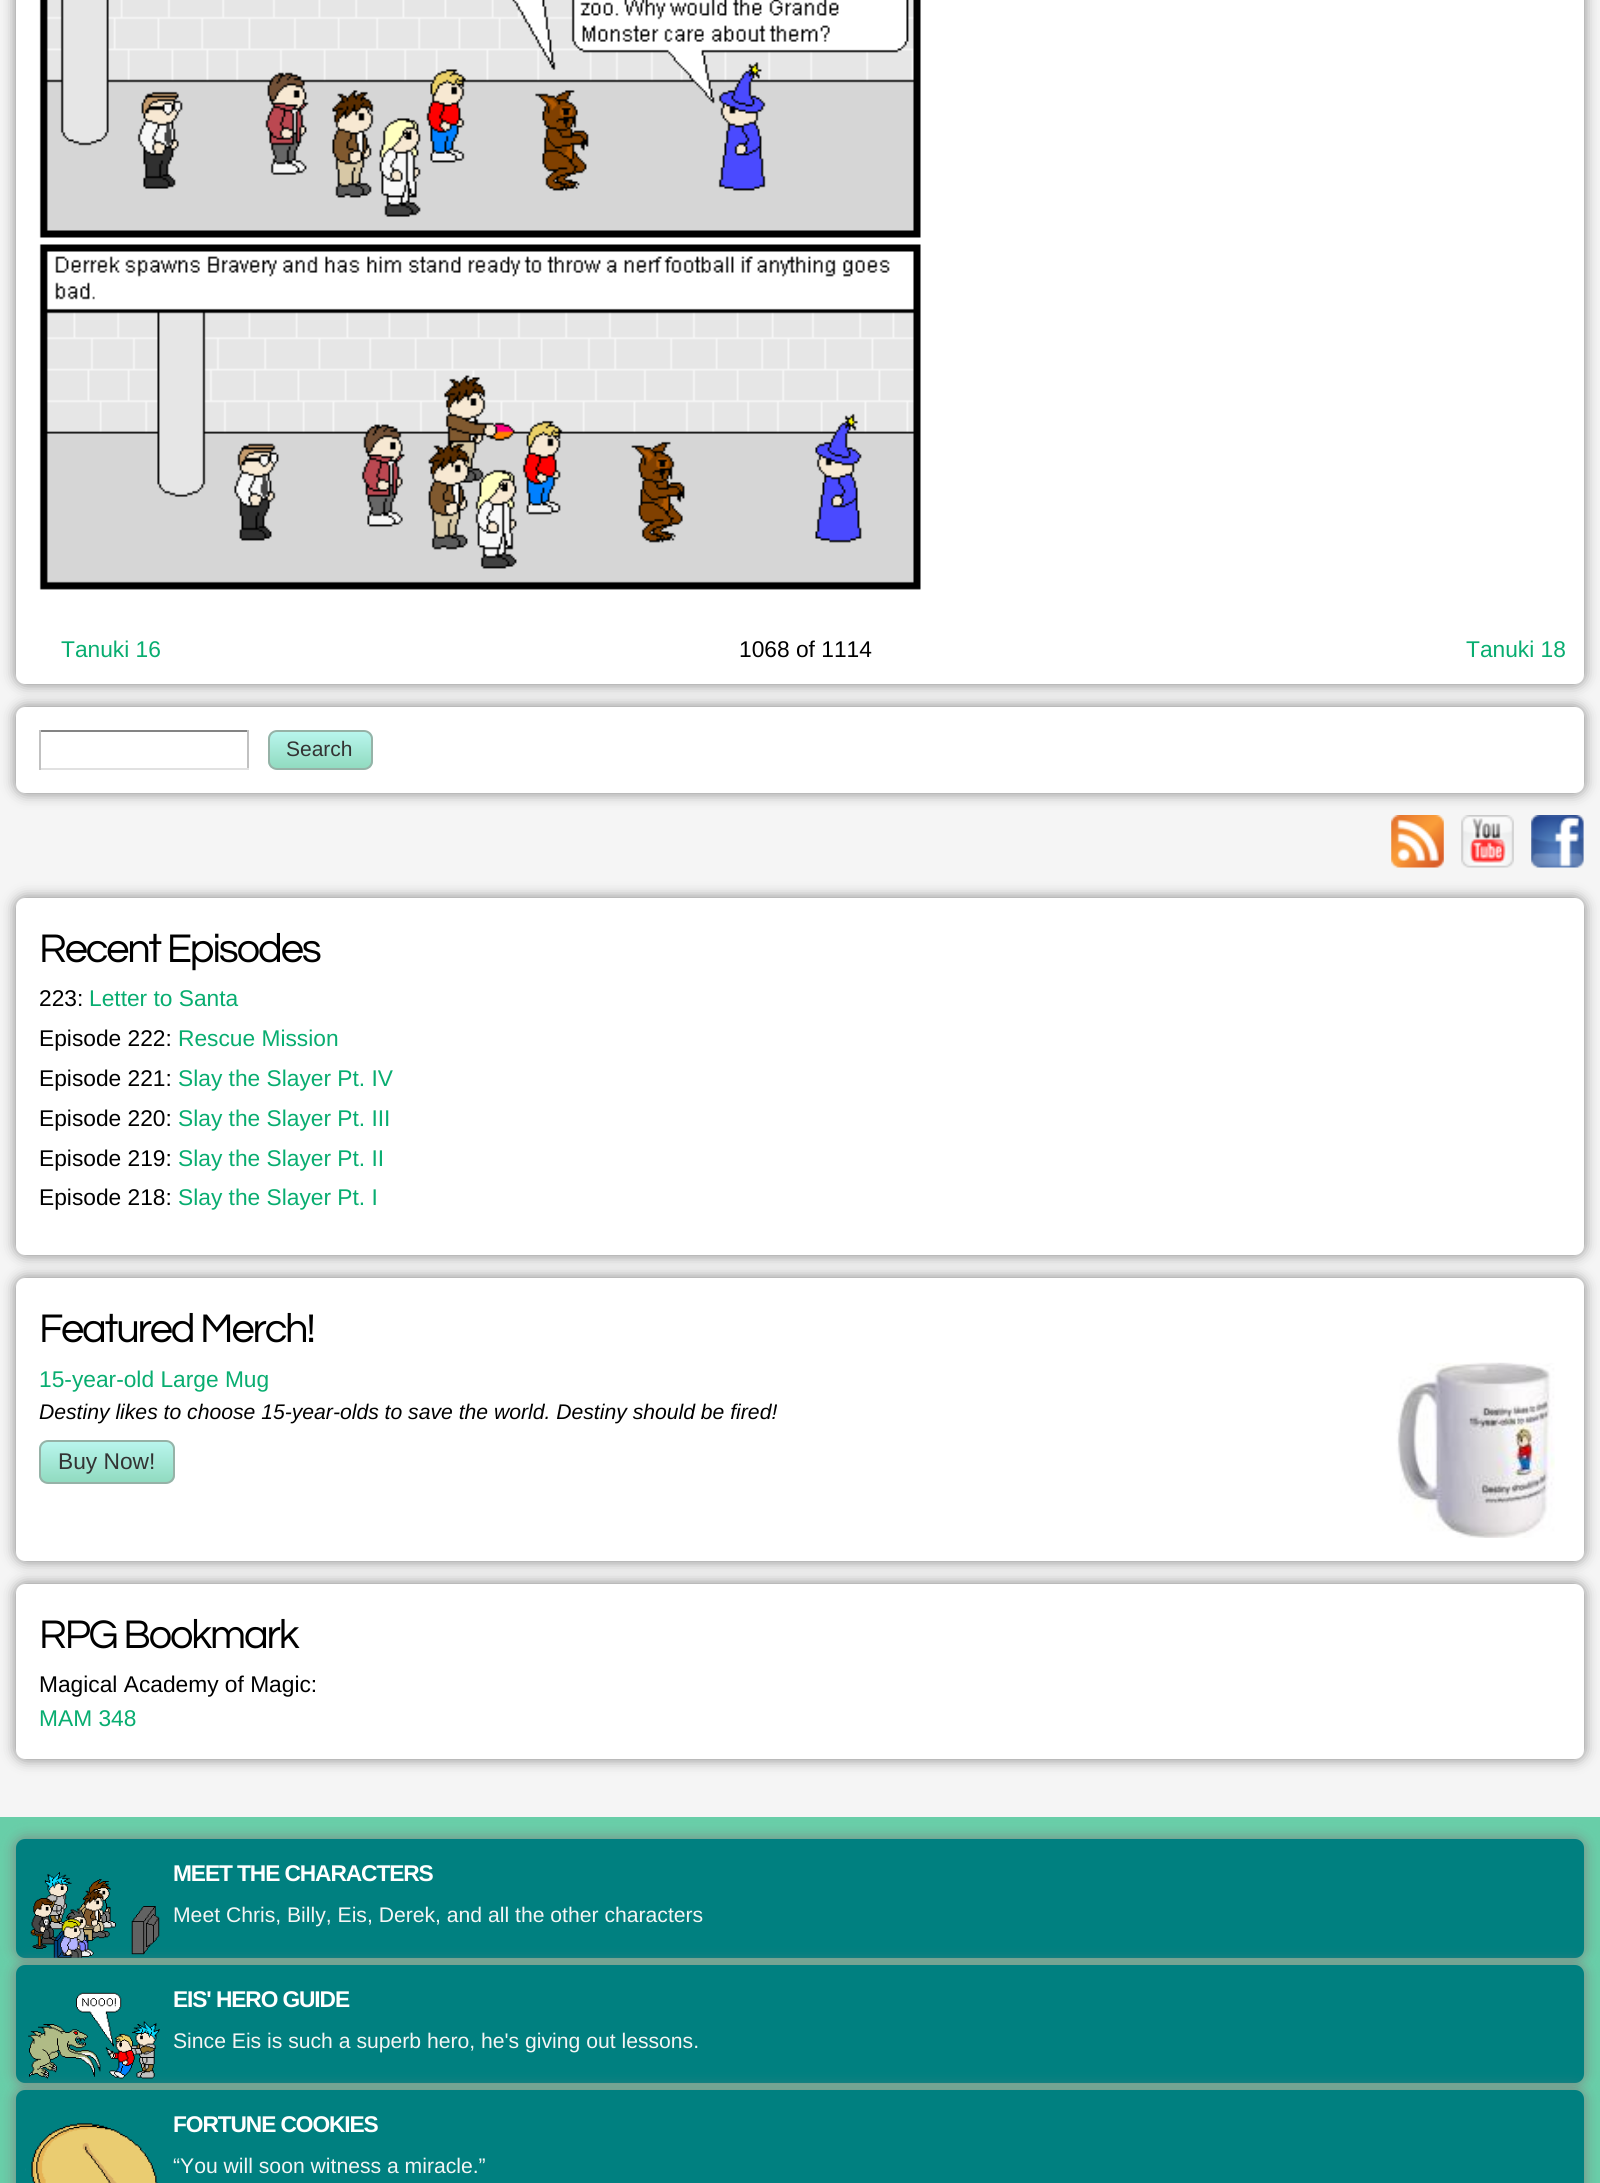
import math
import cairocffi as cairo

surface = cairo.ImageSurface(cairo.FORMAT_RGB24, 1600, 2183)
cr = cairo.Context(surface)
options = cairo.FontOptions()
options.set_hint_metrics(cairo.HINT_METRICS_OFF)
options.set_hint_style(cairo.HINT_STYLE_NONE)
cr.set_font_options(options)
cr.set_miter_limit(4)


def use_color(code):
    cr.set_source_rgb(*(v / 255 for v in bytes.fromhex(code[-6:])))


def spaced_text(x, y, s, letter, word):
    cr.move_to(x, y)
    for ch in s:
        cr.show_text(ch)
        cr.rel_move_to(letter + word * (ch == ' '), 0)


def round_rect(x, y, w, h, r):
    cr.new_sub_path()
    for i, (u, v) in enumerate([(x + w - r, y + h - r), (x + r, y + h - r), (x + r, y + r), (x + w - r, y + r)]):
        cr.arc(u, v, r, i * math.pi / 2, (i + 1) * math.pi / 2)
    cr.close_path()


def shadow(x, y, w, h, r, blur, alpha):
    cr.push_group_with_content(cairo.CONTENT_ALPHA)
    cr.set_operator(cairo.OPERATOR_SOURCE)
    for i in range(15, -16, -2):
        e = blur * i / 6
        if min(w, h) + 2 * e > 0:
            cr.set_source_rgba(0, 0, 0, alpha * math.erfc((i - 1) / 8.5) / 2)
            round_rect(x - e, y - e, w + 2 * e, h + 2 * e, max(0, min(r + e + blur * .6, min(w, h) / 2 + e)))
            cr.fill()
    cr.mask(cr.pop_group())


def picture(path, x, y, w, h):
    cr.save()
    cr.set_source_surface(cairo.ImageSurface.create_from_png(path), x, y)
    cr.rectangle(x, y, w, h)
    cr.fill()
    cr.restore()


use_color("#f5f5f5")
cr.paint()
use_color("#808080")
shadow(16, -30, 1568, 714, 9, 7, 1)
use_color("#ffffff")
round_rect(16, -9, 1568, 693, 9)
cr.fill()
picture("img1.png", 39, 0, 882, 590)
cr.select_font_face("Liberation Sans")
cr.set_font_size(22.75)
use_color("#08ad70")
cr.move_to(61, 657)
cr.show_text("Tanuki 16")
use_color("#000000")
cr.move_to(739, 657)
cr.show_text("1068 of 1114")
use_color("#08ad70")
cr.move_to(1466, 657)
cr.show_text("Tanuki 18")
use_color("#808080")
shadow(16, 707, 1568, 86, 9, 7, 1)
use_color("#ffffff")
round_rect(16, 707, 1568, 86, 9)
cr.fill()
use_color("#848484")
cr.rectangle(39, 730, 210, 2)
cr.fill()
use_color("#c1c1c1")
cr.rectangle(247, 730, 2, 40)
cr.fill()
use_color("#e1e1e1")
cr.rectangle(39, 768, 210, 2)
cr.fill()
use_color("#c1c1c1")
cr.rectangle(39, 730, 2, 40)
cr.fill()
cr.save()
round_rect(268, 730, 105, 40, 9)
cr.clip()
gradient = cairo.LinearGradient(270, 732, 270, 768)
gradient.add_color_stop_rgba(0, 0.722, 0.961, 0.929, 1)
gradient.add_color_stop_rgba(1, 0.569, 0.859, 0.753, 1)
cr.set_source(gradient)
cr.rectangle(268, 732, 105, 36)
cr.fill()
cr.restore()
round_rect(269, 731, 103, 38, 8)
use_color("#96b2a7")
cr.stroke()
cr.set_font_size(21)
use_color("#333333")
cr.move_to(286, 756)
cr.show_text("Search")
picture("img2.png", 1391, 815, 53, 53)
picture("img3.png", 1461, 815, 53, 53)
picture("img4.png", 1531, 815, 53, 53)
use_color("#808080")
shadow(16, 898, 1568, 357, 9, 7, 1)
use_color("#ffffff")
round_rect(16, 898, 1568, 357, 9)
cr.fill()
cr.select_font_face("Questrial")
cr.set_font_size(41.5)
use_color("#000000")
spaced_text(39, 962, "Recent Episodes", -2.1, 0)
cr.select_font_face("Liberation Sans")
cr.set_font_size(22.75)
cr.move_to(39, 1006)
cr.show_text("223:")
use_color("#08ad70")
cr.move_to(89, 1006)
cr.show_text("Letter to Santa")
use_color("#000000")
cr.move_to(39, 1046)
cr.show_text("Episode 222:")
use_color("#08ad70")
cr.move_to(178, 1046)
cr.show_text("Rescue Mission")
use_color("#000000")
cr.move_to(39, 1086)
cr.show_text("Episode 221:")
use_color("#08ad70")
cr.move_to(178, 1086)
cr.show_text("Slay the Slayer Pt. IV")
use_color("#000000")
cr.move_to(39, 1126)
cr.show_text("Episode 220:")
use_color("#08ad70")
cr.move_to(178, 1126)
cr.show_text("Slay the Slayer Pt. III")
use_color("#000000")
cr.move_to(39, 1166)
cr.show_text("Episode 219:")
use_color("#08ad70")
cr.move_to(178, 1166)
cr.show_text("Slay the Slayer Pt. II")
use_color("#000000")
cr.move_to(39, 1205)
cr.show_text("Episode 218:")
use_color("#08ad70")
cr.move_to(178, 1205)
cr.show_text("Slay the Slayer Pt. I")
use_color("#808080")
shadow(16, 1278, 1568, 283, 9, 7, 1)
use_color("#ffffff")
round_rect(16, 1278, 1568, 283, 9)
cr.fill()
cr.select_font_face("Questrial")
cr.set_font_size(41.5)
use_color("#000000")
spaced_text(39, 1342, "Featured Merch!", -2.1, 0)
cr.select_font_face("Liberation Sans")
cr.set_font_size(22.75)
use_color("#08ad70")
cr.move_to(39, 1387)
cr.show_text("15-year-old Large Mug")
picture("img5.png", 1396, 1362, 159, 176)
cr.select_font_face("Liberation Sans", cairo.FONT_SLANT_ITALIC)
cr.set_font_size(21.15)
use_color("#000000")
cr.move_to(39, 1419)
cr.show_text("Destiny likes to choose 15-year-olds to save the world. Destiny should be fired!")
cr.save()
round_rect(39, 1440, 136, 44, 9)
cr.clip()
gradient = cairo.LinearGradient(40, 1442, 40, 1482)
gradient.add_color_stop_rgba(0, 0.722, 0.961, 0.929, 1)
gradient.add_color_stop_rgba(1, 0.569, 0.859, 0.753, 1)
cr.set_source(gradient)
cr.rectangle(39, 1442, 136, 40)
cr.fill()
cr.restore()
round_rect(40, 1441, 134, 42, 8)
use_color("#96b2a7")
cr.stroke()
cr.select_font_face("Liberation Sans")
cr.set_font_size(22.75)
use_color("#333333")
cr.move_to(58, 1469)
cr.show_text("Buy Now!")
use_color("#808080")
shadow(16, 1584, 1568, 175, 9, 7, 1)
use_color("#ffffff")
round_rect(16, 1584, 1568, 175, 9)
cr.fill()
cr.select_font_face("Questrial")
cr.set_font_size(41.5)
use_color("#000000")
spaced_text(39, 1648, "RPG Bookmark", -2.1, 0)
cr.select_font_face("Liberation Sans")
cr.set_font_size(22.75)
cr.move_to(39, 1692)
cr.show_text("Magical Academy of Magic:")
use_color("#08ad70")
cr.move_to(39, 1726)
cr.show_text("MAM 348")
use_color("#68cea8")
cr.rectangle(0, 1817, 1600, 366)
cr.fill()
use_color("#808080")
shadow(16, 1839, 1568, 119, 9, 7, 1)
use_color("#008080")
round_rect(16, 1839, 1568, 119, 9)
cr.fill()
cr.select_font_face("Liberation Sans", cairo.FONT_SLANT_NORMAL, cairo.FONT_WEIGHT_BOLD)
use_color("#ffffff")
spaced_text(173, 1881, "MEET THE CHARACTERS", -1.1, 0)
picture("img6.png", 30, 1872, 130, 86)
cr.select_font_face("Liberation Sans")
cr.set_font_size(21.15)
use_color("#f5f5f5")
cr.move_to(173, 1922)
cr.show_text("Meet Chris, Billy, Eis, Derek, and all the other characters")
use_color("#808080")
shadow(16, 1965, 1568, 118, 9, 7, 1)
use_color("#008080")
round_rect(16, 1965, 1568, 118, 9)
cr.fill()
cr.select_font_face("Liberation Sans", cairo.FONT_SLANT_NORMAL, cairo.FONT_WEIGHT_BOLD)
cr.set_font_size(22.75)
use_color("#ffffff")
spaced_text(173, 2007, "EIS' HERO GUIDE", -1.1, 0)
picture("img7.png", 28, 1992, 132, 87)
cr.select_font_face("Liberation Sans")
cr.set_font_size(21.15)
use_color("#f5f5f5")
cr.move_to(173, 2048)
cr.show_text("Since Eis is such a superb hero, he's giving out lessons.")
use_color("#808080")
shadow(16, 2090, 1568, 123, 9, 7, 1)
use_color("#008080")
round_rect(16, 2090, 1568, 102, 9)
cr.fill()
cr.select_font_face("Liberation Sans", cairo.FONT_SLANT_NORMAL, cairo.FONT_WEIGHT_BOLD)
cr.set_font_size(22.75)
use_color("#ffffff")
spaced_text(173, 2132, "FORTUNE COOKIES", -1.1, 0)
picture("img8.png", 25, 2123, 133, 60)
cr.select_font_face("Liberation Sans")
cr.set_font_size(21.15)
use_color("#f5f5f5")
cr.move_to(173, 2173)
cr.show_text("“You will soon witness a miracle.”")
surface.write_to_png("result.png")
